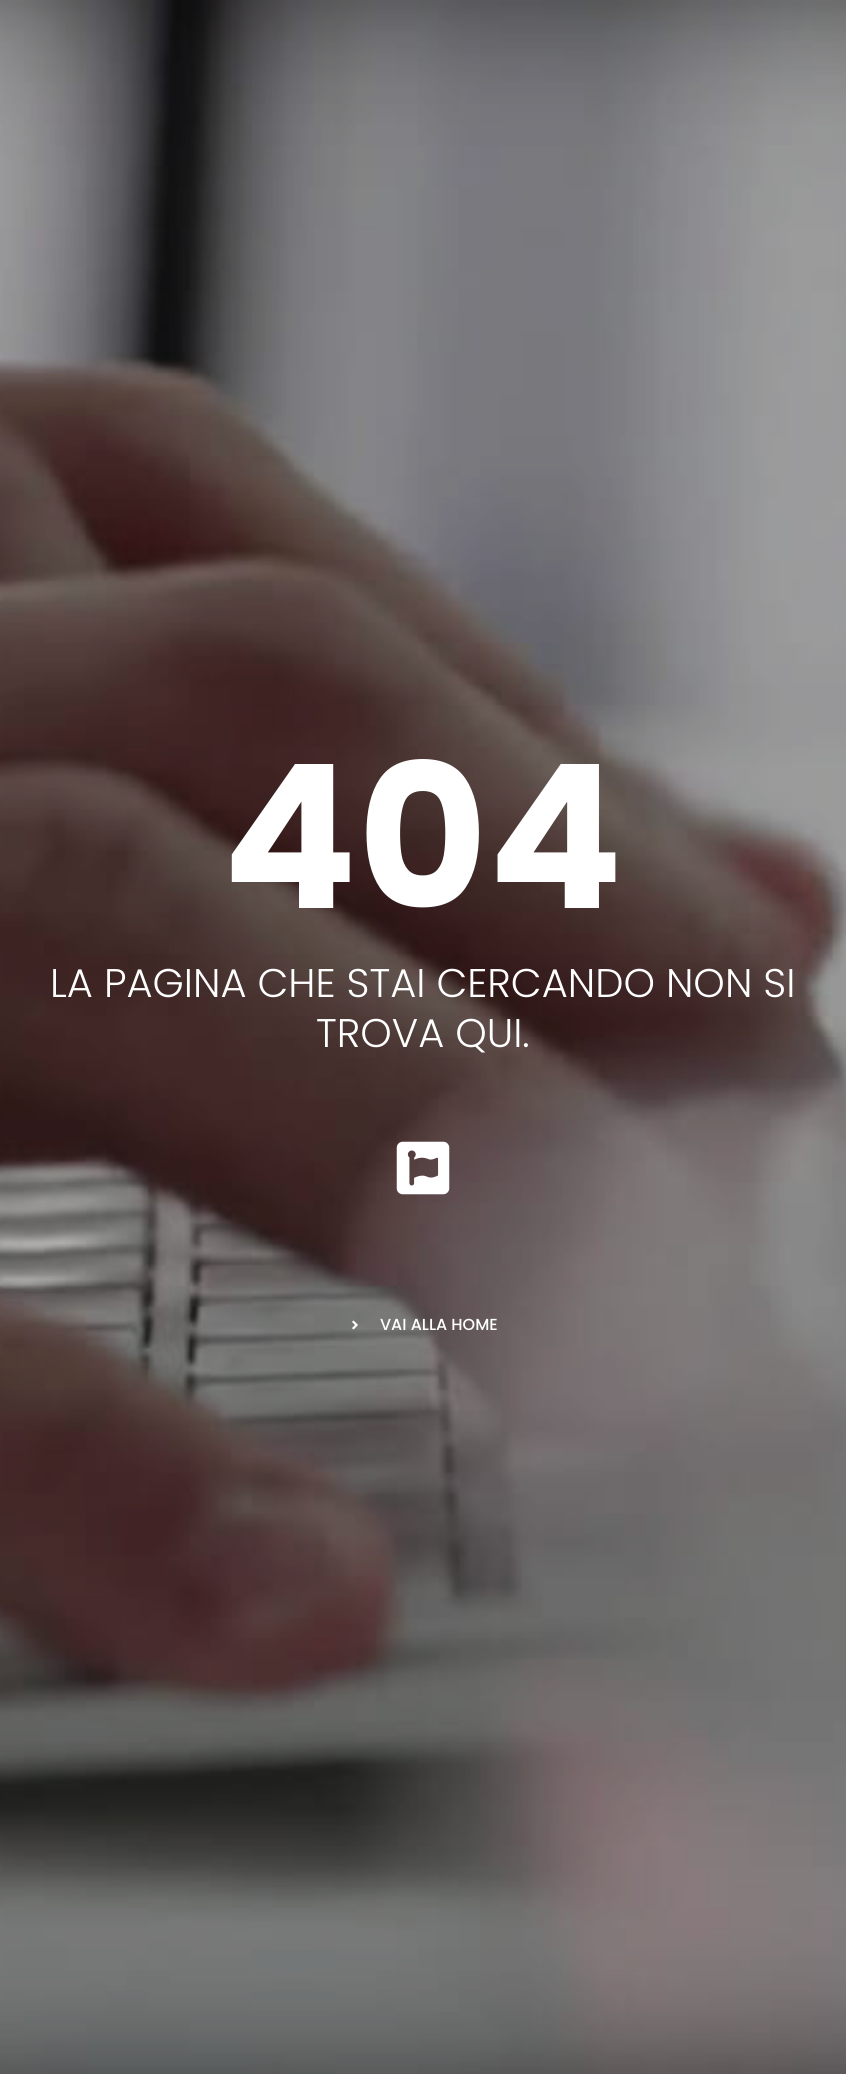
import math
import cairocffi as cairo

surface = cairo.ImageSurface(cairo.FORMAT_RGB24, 846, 2074)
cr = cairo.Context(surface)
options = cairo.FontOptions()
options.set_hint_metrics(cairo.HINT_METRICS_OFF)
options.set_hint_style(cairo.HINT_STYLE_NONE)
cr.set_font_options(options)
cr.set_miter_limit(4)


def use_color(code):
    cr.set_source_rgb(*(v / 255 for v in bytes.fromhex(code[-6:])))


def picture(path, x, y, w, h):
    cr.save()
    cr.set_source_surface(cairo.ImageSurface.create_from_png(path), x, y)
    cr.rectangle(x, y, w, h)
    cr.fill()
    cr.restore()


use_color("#ffffff")
cr.paint()
picture("img1.png", 0, 0, 846, 2074)
cr.select_font_face("Poppins", cairo.FONT_SLANT_NORMAL, cairo.FONT_WEIGHT_BOLD)
cr.set_font_size(200)
use_color("#ffffff")
cr.move_to(222, 908)
cr.show_text("404")
cr.select_font_face("Poppins Light")
cr.set_font_size(40)
cr.move_to(50, 997)
cr.show_text("LA PAGINA CHE STAI CERCANDO NON SI")
cr.move_to(316, 1047)
cr.show_text("TROVA QUI.")
picture("img2.png", 396, 1141, 54, 54)
picture("img3.png", 352, 1320, 6, 10)
cr.select_font_face("Poppins Medium")
cr.set_font_size(16)
cr.move_to(380, 1330)
cr.show_text("VAI ALLA HOME")
surface.write_to_png("result.png")
